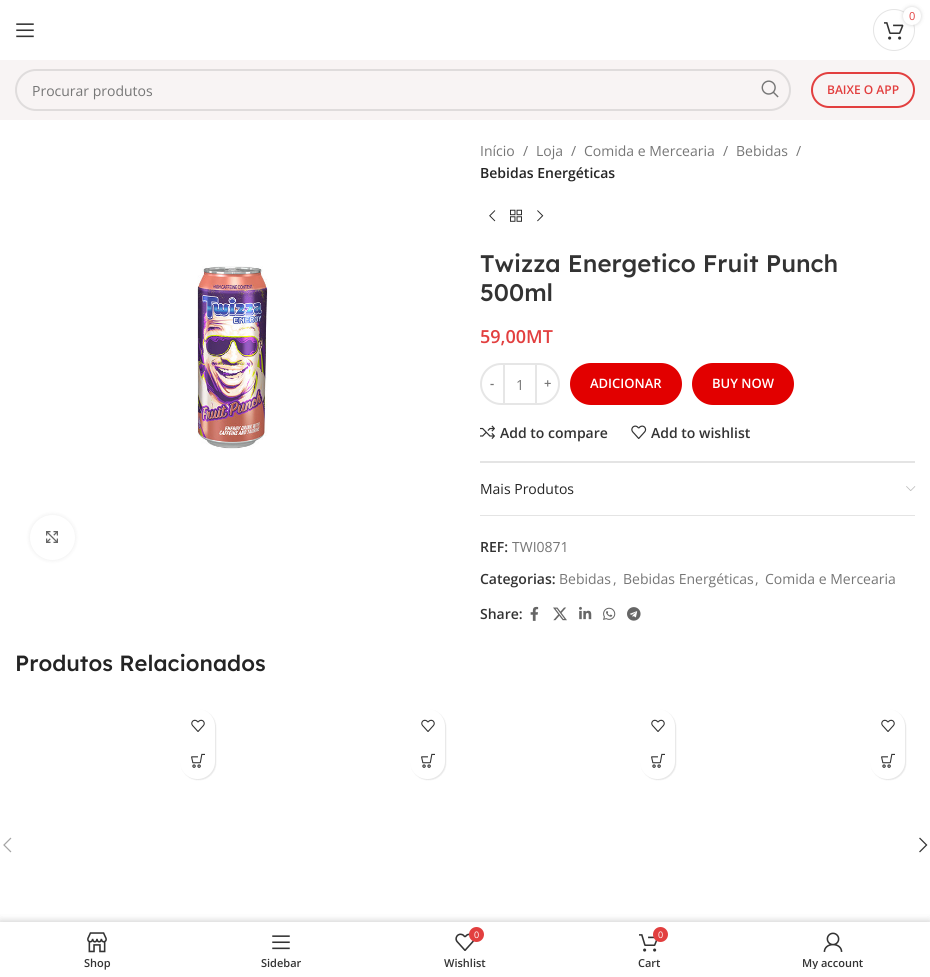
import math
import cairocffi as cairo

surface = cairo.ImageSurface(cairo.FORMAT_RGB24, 930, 977)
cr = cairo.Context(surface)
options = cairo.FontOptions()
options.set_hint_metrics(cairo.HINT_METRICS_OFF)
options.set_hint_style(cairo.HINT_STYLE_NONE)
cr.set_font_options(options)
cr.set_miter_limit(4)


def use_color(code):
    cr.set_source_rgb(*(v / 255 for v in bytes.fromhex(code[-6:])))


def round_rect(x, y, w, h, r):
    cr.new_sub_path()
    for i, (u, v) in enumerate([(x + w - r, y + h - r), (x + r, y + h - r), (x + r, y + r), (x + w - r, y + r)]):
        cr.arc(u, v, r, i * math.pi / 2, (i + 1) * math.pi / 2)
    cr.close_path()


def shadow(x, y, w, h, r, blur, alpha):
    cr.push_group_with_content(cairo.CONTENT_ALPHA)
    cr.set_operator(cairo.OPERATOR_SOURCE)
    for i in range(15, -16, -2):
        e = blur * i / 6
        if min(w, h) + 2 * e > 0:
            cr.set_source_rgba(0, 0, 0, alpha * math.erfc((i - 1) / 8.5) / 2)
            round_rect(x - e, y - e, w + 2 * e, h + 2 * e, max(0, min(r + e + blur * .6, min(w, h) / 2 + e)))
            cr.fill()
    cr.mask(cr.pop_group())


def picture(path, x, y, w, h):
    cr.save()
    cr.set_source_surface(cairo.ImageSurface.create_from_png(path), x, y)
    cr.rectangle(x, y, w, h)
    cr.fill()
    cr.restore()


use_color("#ffffff")
cr.paint()
cr.arc(894, 30, 20.5, 0, 2 * math.pi)
use_color("#e4e4e4")
cr.set_line_width(1)
cr.stroke()
picture("img1.png", 884, 22, 20, 18)
use_color("#000000")
shadow(903, 7, 18, 18, 9, 2, 0.17)
use_color("#ffffff")
cr.arc(912, 16, 9, 0, 2 * math.pi)
cr.fill()
cr.select_font_face("Open Sans")
cr.set_font_size(11)
use_color("#e23f3f")
cr.move_to(909, 20)
cr.show_text("0")
picture("img2.png", 16, 23, 18, 15)
use_color("#f8f4f4")
cr.rectangle(0, 60, 930, 60)
cr.fill()
round_rect(16, 70, 774, 40, 20)
use_color("#dfdcdc")
cr.set_line_width(2)
cr.stroke()
cr.set_font_size(14)
use_color("#767676")
cr.move_to(32, 96)
cr.show_text("Procurar produtos")
picture("img3.png", 761, 80, 18, 18)
round_rect(812, 73, 102, 34, 17)
use_color("#e23f3f")
cr.stroke()
cr.select_font_face("Open Sans SemiBold")
cr.set_font_size(12)
cr.move_to(827, 94)
cr.show_text("BAIXE O APP")
picture("img4.png", 197, 266, 71, 183)
use_color("#000000")
shadow(30, 515, 45, 45, 22.5, 2.5, 0.08)
use_color("#ffffff")
cr.arc(52.5, 537.5, 22.5, 0, 2 * math.pi)
cr.fill()
picture("img5.png", 46, 531, 12, 12)
cr.select_font_face("Open Sans")
cr.set_font_size(14)
use_color("#767676")
cr.move_to(480, 156)
cr.show_text("Início")
cr.move_to(523, 156)
cr.show_text("/")
cr.move_to(536, 156)
cr.show_text("Loja")
cr.move_to(571, 156)
cr.show_text("/")
cr.move_to(584, 156)
cr.show_text("Comida e Mercearia")
cr.move_to(723, 156)
cr.show_text("/")
cr.move_to(736, 156)
cr.show_text("Bebidas")
cr.move_to(796, 156)
cr.show_text("/")
cr.select_font_face("Open Sans SemiBold")
use_color("#242424")
cr.move_to(480, 178)
cr.show_text("Bebidas Energéticas")
picture("img6.png", 489, 210, 7, 12)
picture("img7.png", 510, 209, 12, 13)
picture("img8.png", 537, 210, 7, 12)
cr.select_font_face("Lexend Deca Medium")
cr.set_font_size(24)
use_color("#333333")
cr.move_to(480, 272)
cr.show_text("Twizza Energetico Fruit Punch")
cr.move_to(480, 301)
cr.show_text("500ml")
cr.select_font_face("Open Sans SemiBold")
cr.set_font_size(18)
use_color("#e23f3f")
cr.move_to(480, 343)
cr.show_text("59,00MT")
cr.new_path()
cr.move_to(501, 364)
cr.line_to(504, 364)
cr.line_to(504, 404)
cr.line_to(501, 404)
cr.curve_to(490, 404, 481, 395, 481, 384)
cr.curve_to(481, 373, 490, 364, 501, 364)
cr.close_path()
use_color("#e6e6e6")
cr.stroke()
cr.set_font_size(13)
use_color("#767676")
cr.move_to(490, 388)
cr.show_text("-")
use_color("#e6e6e6")
cr.rectangle(505, 363, 30, 2)
cr.fill()
cr.rectangle(505, 403, 30, 2)
cr.fill()
cr.select_font_face("Open Sans")
cr.set_font_size(14)
use_color("#767676")
cr.move_to(516, 390)
cr.show_text("1")
cr.new_path()
cr.move_to(536, 364)
cr.line_to(539, 364)
cr.curve_to(550, 364, 559, 373, 559, 384)
cr.curve_to(559, 395, 550, 404, 539, 404)
cr.line_to(536, 404)
cr.close_path()
use_color("#e6e6e6")
cr.stroke()
cr.select_font_face("Open Sans SemiBold")
cr.set_font_size(13)
use_color("#767676")
cr.move_to(544, 388)
cr.show_text("+")
use_color("#e20000")
round_rect(570, 363, 112, 42, 21)
cr.fill()
use_color("#ffffff")
cr.move_to(590, 388)
cr.show_text("ADICIONAR")
use_color("#e20000")
round_rect(692, 363, 102, 42, 21)
cr.fill()
use_color("#ffffff")
cr.move_to(712, 388)
cr.show_text("BUY NOW")
picture("img9.png", 480, 425, 15, 14)
cr.set_font_size(14)
use_color("#333333")
cr.move_to(500, 438)
cr.show_text("Add to compare")
picture("img10.png", 631, 425, 16, 14)
cr.move_to(651, 438)
cr.show_text("Add to wishlist")
use_color("#e4e4e4")
cr.rectangle(480, 461, 435, 2)
cr.fill()
cr.rectangle(480, 515, 435, 1)
cr.fill()
cr.select_font_face("Open Sans")
use_color("#242424")
cr.move_to(480, 494)
cr.show_text("Mais Produtos")
picture("img11.png", 906, 486, 10, 5)
cr.select_font_face("Open Sans SemiBold")
use_color("#333333")
cr.move_to(480, 552)
cr.show_text("REF:")
cr.select_font_face("Open Sans")
use_color("#767676")
cr.move_to(512, 552)
cr.show_text("TWI0871")
cr.select_font_face("Open Sans SemiBold")
use_color("#333333")
cr.move_to(480, 584)
cr.show_text("Categorias:")
cr.select_font_face("Open Sans")
use_color("#767676")
cr.move_to(559, 584)
cr.show_text("Bebidas")
cr.move_to(613, 584)
cr.show_text(",")
cr.move_to(623, 584)
cr.show_text("Bebidas Energéticas")
cr.move_to(755, 584)
cr.show_text(",")
cr.move_to(765, 584)
cr.show_text("Comida e Mercearia")
cr.select_font_face("Open Sans SemiBold")
use_color("#333333")
cr.move_to(480, 619)
cr.show_text("Share:")
picture("img12.png", 530, 606, 9, 15)
picture("img13.png", 553, 607, 14, 14)
picture("img14.png", 579, 606, 13, 14)
picture("img15.png", 603, 607, 13, 13)
picture("img16.png", 627, 607, 14, 14)
cr.select_font_face("Lexend Deca Medium")
cr.set_font_size(22)
use_color("#242424")
cr.move_to(15, 671)
cr.show_text("Produtos Relacionados")
use_color("#000000")
shadow(181, 710, 35, 70, 17.5, 0.5, 0.1)
use_color("#ffffff")
round_rect(180, 709, 35, 70, 17.5)
cr.fill()
picture("img17.png", 191, 719, 14, 13)
picture("img18.png", 191, 753, 14, 15)
use_color("#000000")
shadow(411, 710, 35, 70, 17.5, 0.5, 0.1)
use_color("#ffffff")
round_rect(410, 709, 35, 70, 17.5)
cr.fill()
picture("img17.png", 421, 719, 14, 13)
picture("img18.png", 421, 753, 14, 15)
use_color("#000000")
shadow(641, 710, 35, 70, 17.5, 0.5, 0.1)
use_color("#ffffff")
round_rect(640, 709, 35, 70, 17.5)
cr.fill()
picture("img17.png", 651, 719, 14, 13)
picture("img18.png", 651, 753, 14, 15)
use_color("#000000")
shadow(871, 710, 35, 70, 17.5, 0.5, 0.1)
use_color("#ffffff")
round_rect(870, 709, 35, 70, 17.5)
cr.fill()
picture("img17.png", 881, 719, 14, 13)
picture("img18.png", 881, 753, 14, 15)
picture("img19.png", 3, 837, 9, 16)
picture("img20.png", 919, 837, 9, 16)
use_color("#000000")
shadow(0, 922, 930, 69, 0, 4.5, 0.12)
shadow(0, 922, 930, 55, 0, 4.5, 0.12)
use_color("#ffffff")
cr.rectangle(0, 922, 930, 55)
cr.fill()
picture("img21.png", 87, 932, 20, 21)
cr.select_font_face("Open Sans SemiBold")
cr.set_font_size(11)
use_color("#333333")
cr.move_to(84, 967)
cr.show_text("Shop")
picture("img2.png", 272, 935, 18, 15)
cr.move_to(261, 967)
cr.show_text("Sidebar")
picture("img22.png", 455, 933, 20, 18)
use_color("#e23f3f")
cr.arc(476.5, 934.5, 7.5, 0, 2 * math.pi)
cr.fill()
cr.select_font_face("Open Sans")
cr.set_font_size(9)
use_color("#ffffff")
cr.move_to(474, 938)
cr.show_text("0")
cr.select_font_face("Open Sans SemiBold")
cr.set_font_size(11)
use_color("#333333")
cr.move_to(444, 967)
cr.show_text("Wishlist")
picture("img23.png", 639, 934, 19, 18)
use_color("#e23f3f")
cr.arc(660.5, 934.5, 7.5, 0, 2 * math.pi)
cr.fill()
cr.select_font_face("Open Sans")
cr.set_font_size(9)
use_color("#ffffff")
cr.move_to(658, 938)
cr.show_text("0")
cr.select_font_face("Open Sans SemiBold")
cr.set_font_size(11)
use_color("#333333")
cr.move_to(638, 967)
cr.show_text("Cart")
picture("img24.png", 823, 932, 20, 20)
cr.save()
cr.rectangle(751, 956, 164, 13)
cr.clip()
cr.move_to(802, 967)
cr.show_text("My account")
cr.restore()
surface.write_to_png("result.png")
